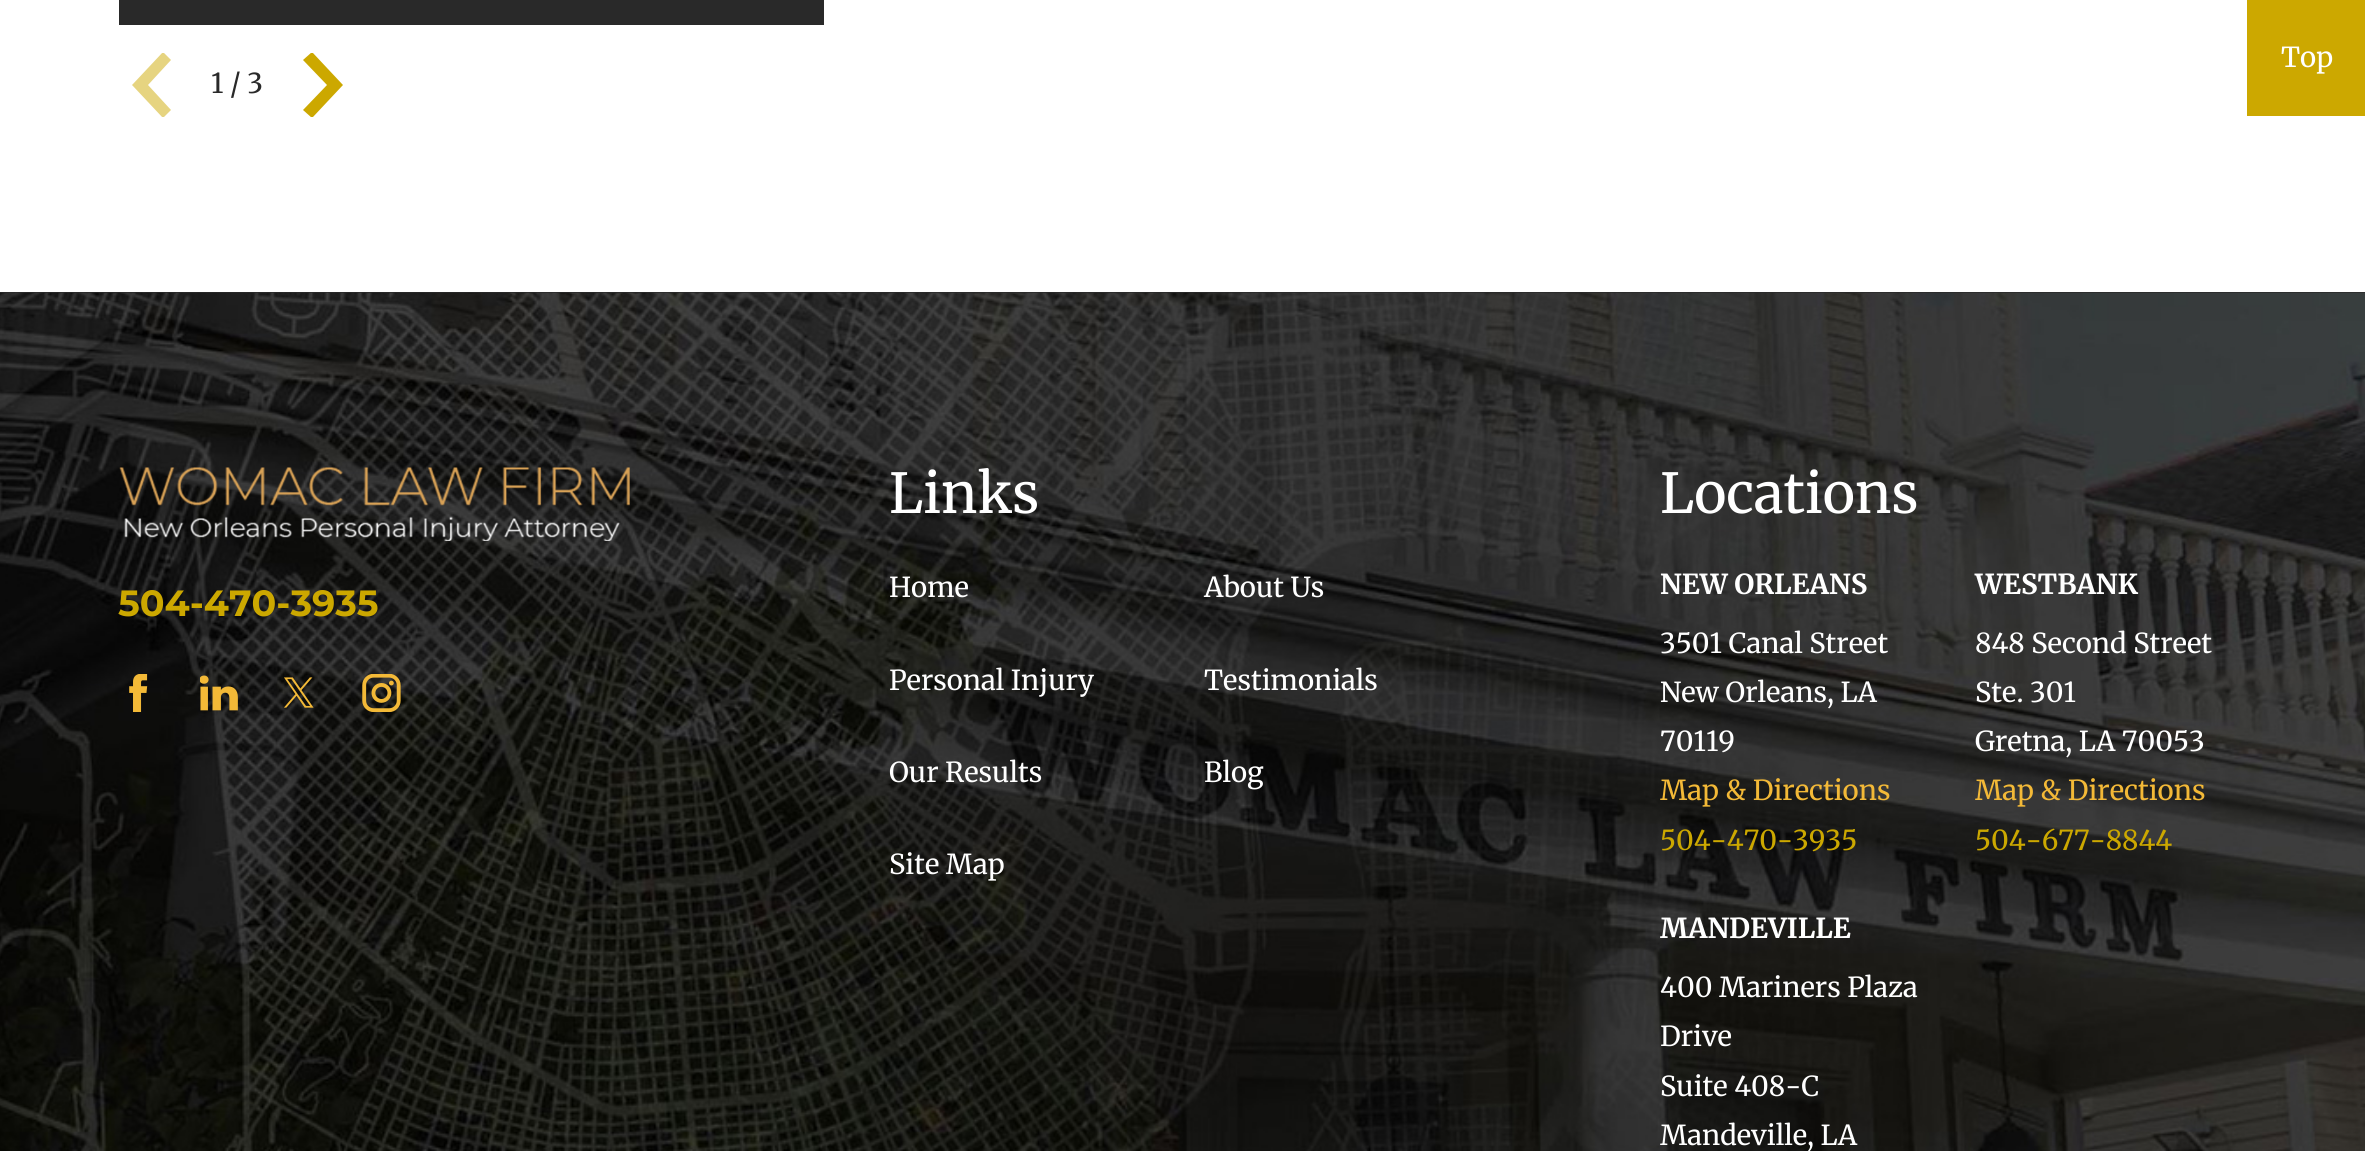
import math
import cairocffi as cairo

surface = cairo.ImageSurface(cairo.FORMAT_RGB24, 2365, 1151)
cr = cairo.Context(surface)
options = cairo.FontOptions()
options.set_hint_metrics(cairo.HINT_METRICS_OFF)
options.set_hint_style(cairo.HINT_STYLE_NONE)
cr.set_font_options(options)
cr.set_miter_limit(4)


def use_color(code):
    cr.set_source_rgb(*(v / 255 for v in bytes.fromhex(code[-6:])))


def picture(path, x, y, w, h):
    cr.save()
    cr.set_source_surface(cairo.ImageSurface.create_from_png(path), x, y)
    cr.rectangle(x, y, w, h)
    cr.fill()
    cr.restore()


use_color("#ffffff")
cr.paint()
use_color("#cca800")
cr.rectangle(2247, 0, 118, 116)
cr.fill()
cr.select_font_face("Merriweather")
cr.set_font_size(27.5)
use_color("#ffffff")
cr.move_to(2281, 67)
cr.show_text("Top")
use_color("#292929")
cr.rectangle(119, 0, 705, 25)
cr.fill()
cr.save()
cr.rectangle(119, 53, 65, 64)
cr.clip()
use_color("#e6d480")
cr.new_path()
cr.move_to(148, 85)
cr.line_to(171, 60)
cr.line_to(163, 52)
cr.line_to(132, 85)
cr.line_to(163, 118)
cr.line_to(171, 110)
cr.close_path()
cr.fill()
cr.restore()
cr.move_to(211, 93)
cr.show_text("1 / 3")
cr.save()
cr.rectangle(291, 53, 64, 64)
cr.clip()
use_color("#cca800")
cr.new_path()
cr.move_to(327, 85)
cr.line_to(303, 110)
cr.line_to(312, 118)
cr.line_to(343, 85)
cr.line_to(312, 52)
cr.line_to(303, 60)
cr.close_path()
cr.fill()
cr.restore()
cr.rectangle(0, 292, 2365, 1)
cr.fill()
picture("img1.png", 0, 292, 2365, 859)
picture("img2.png", 119, 467, 511, 74)
cr.select_font_face("Montserrat", cairo.FONT_SLANT_NORMAL, cairo.FONT_WEIGHT_BOLD)
cr.set_font_size(36.5)
use_color("#cca800")
cr.move_to(118, 616)
cr.show_text("504-470-3935")
picture("img3.png", 129, 674, 19, 38)
picture("img4.png", 200, 675, 38, 36)
picture("img5.png", 284, 677, 30, 31)
picture("img6.png", 362, 674, 39, 38)
cr.select_font_face("Merriweather")
cr.set_font_size(55)
use_color("#ffffff")
cr.move_to(889, 513)
cr.show_text("Links")
cr.set_font_size(27.5)
cr.move_to(889, 597)
cr.show_text("Home")
cr.move_to(1204, 597)
cr.show_text("About Us")
cr.move_to(889, 690)
cr.show_text("Personal Injury")
cr.move_to(1204, 690)
cr.show_text("Testimonials")
cr.move_to(889, 782)
cr.show_text("Our Results")
cr.move_to(1204, 782)
cr.show_text("Blog")
cr.move_to(889, 874)
cr.show_text("Site Map")
cr.set_font_size(55)
cr.move_to(1660, 513)
cr.show_text("Locations")
cr.select_font_face("Merriweather", cairo.FONT_SLANT_NORMAL, cairo.FONT_WEIGHT_BOLD)
cr.set_font_size(27.5)
cr.move_to(1660, 594)
cr.show_text("NEW ORLEANS")
cr.select_font_face("Merriweather")
cr.move_to(1660, 653)
cr.show_text("3501 Canal Street")
cr.move_to(1660, 702)
cr.show_text("New Orleans, LA")
cr.move_to(1660, 751)
cr.show_text("70119")
use_color("#f3b937")
cr.move_to(1660, 800)
cr.show_text("Map & Directions")
use_color("#cca800")
cr.move_to(1660, 850)
cr.show_text("504-470-3935")
cr.select_font_face("Merriweather", cairo.FONT_SLANT_NORMAL, cairo.FONT_WEIGHT_BOLD)
use_color("#ffffff")
cr.move_to(1975, 594)
cr.show_text("WESTBANK")
cr.select_font_face("Merriweather")
cr.move_to(1975, 653)
cr.show_text("848 Second Street")
cr.move_to(1975, 702)
cr.show_text("Ste. 301")
cr.move_to(1975, 751)
cr.show_text("Gretna, LA 70053")
use_color("#f3b937")
cr.move_to(1975, 800)
cr.show_text("Map & Directions")
use_color("#cca800")
cr.move_to(1975, 850)
cr.show_text("504-677-8844")
cr.select_font_face("Merriweather", cairo.FONT_SLANT_NORMAL, cairo.FONT_WEIGHT_BOLD)
use_color("#ffffff")
cr.move_to(1660, 938)
cr.show_text("MANDEVILLE")
cr.select_font_face("Merriweather")
cr.move_to(1660, 997)
cr.show_text("400 Mariners Plaza")
cr.move_to(1660, 1046)
cr.show_text("Drive")
cr.move_to(1660, 1096)
cr.show_text("Suite 408-C")
cr.move_to(1660, 1145)
cr.show_text("Mandeville, LA")
surface.write_to_png("result.png")
